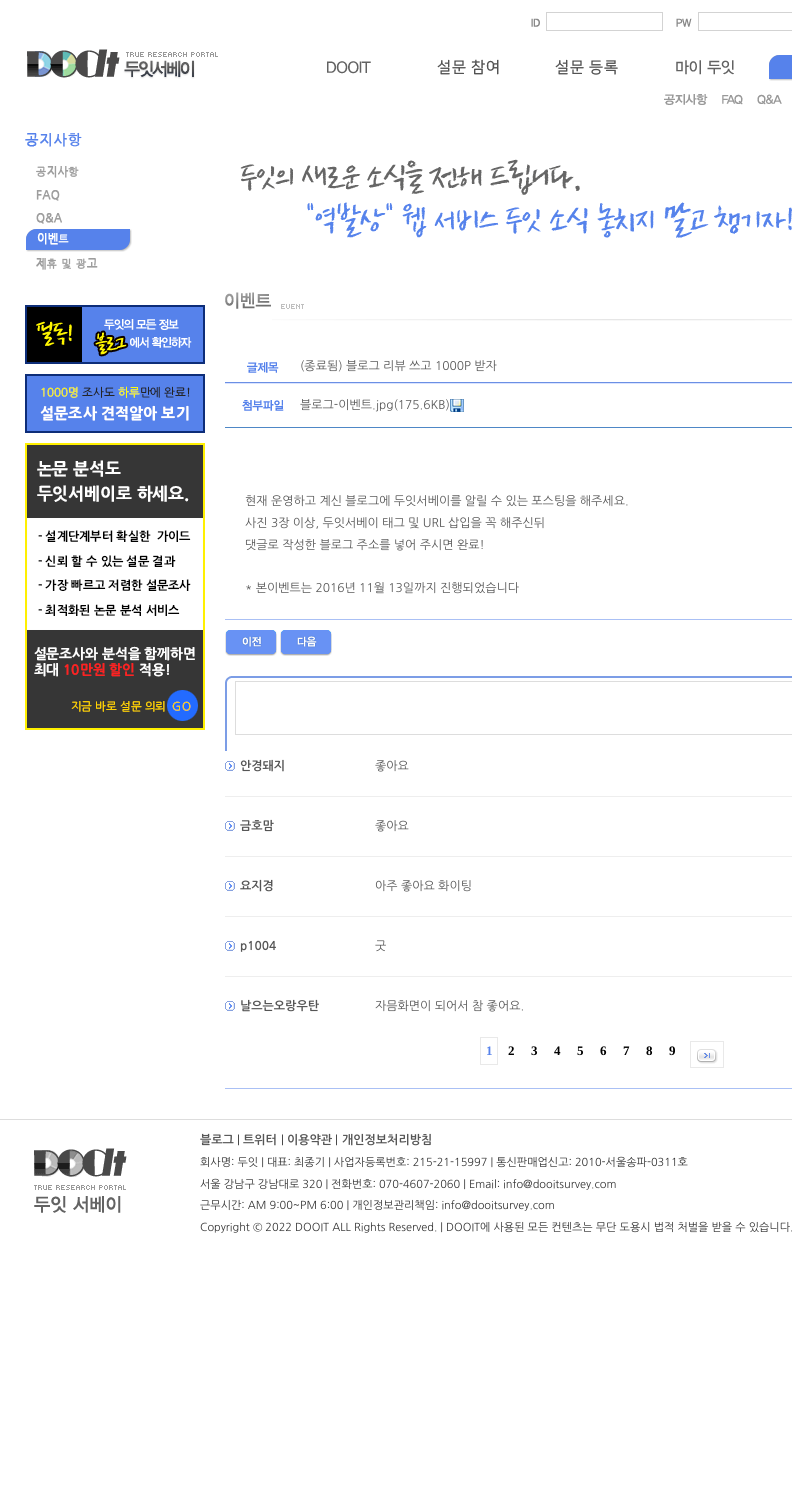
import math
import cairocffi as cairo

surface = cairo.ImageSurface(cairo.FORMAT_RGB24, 792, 1490)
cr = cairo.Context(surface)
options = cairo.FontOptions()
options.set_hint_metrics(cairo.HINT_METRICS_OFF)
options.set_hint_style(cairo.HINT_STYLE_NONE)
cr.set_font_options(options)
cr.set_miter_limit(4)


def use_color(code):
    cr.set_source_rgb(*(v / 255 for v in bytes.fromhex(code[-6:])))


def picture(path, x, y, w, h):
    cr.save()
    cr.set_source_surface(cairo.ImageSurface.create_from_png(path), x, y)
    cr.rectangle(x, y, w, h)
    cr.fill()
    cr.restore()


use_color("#ffffff")
cr.paint()
picture("img1.png", 531, 18, 9, 9)
cr.rectangle(546.5, 12.5, 116, 18)
use_color("#d3d3d3")
cr.set_line_width(1)
cr.stroke()
picture("img2.png", 676, 18, 16, 9)
cr.rectangle(698.5, 12.5, 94, 18)
cr.stroke()
picture("img3.png", 27, 49, 191, 30)
picture("img4.png", 437, 59, 62, 16)
picture("img5.png", 555, 59, 63, 16)
picture("img6.png", 769, 55, 23, 26)
picture("img7.png", 664, 94, 44, 11)
picture("img8.png", 722, 94, 21, 11)
picture("img9.png", 757, 94, 25, 11)
picture("img10.png", 327, 61, 44, 13)
picture("img11.png", 676, 60, 58, 15)
picture("img12.png", 25, 132, 57, 15)
picture("img13.png", 36, 166, 43, 12)
picture("img14.png", 36, 190, 24, 11)
picture("img15.png", 36, 213, 26, 11)
picture("img16.png", 26, 229, 106, 23)
picture("img17.png", 36, 258, 62, 12)
picture("img18.png", 25, 305, 180, 59)
picture("img19.png", 25, 374, 180, 59)
picture("img20.png", 25, 443, 180, 287)
picture("img21.png", 240, 159, 552, 79)
picture("img22.png", 272, 319, 520, 2)
picture("img23.png", 225, 292, 79, 17)
use_color("#aac0f5")
cr.rectangle(225, 619, 567, 1)
cr.fill()
picture("img24.png", 225, 382, 75, 2)
picture("img25.png", 247, 362, 32, 11)
picture("img26.png", 300, 382, 492, 2)
cr.select_font_face("NanumGothic")
cr.set_font_size(12)
use_color("#555555")
cr.move_to(300, 370)
cr.show_text("(종료됨) 블로그 리뷰 쓰고 1000P 받자")
picture("img27.png", 242, 400, 42, 11)
use_color("#4e87c6")
cr.rectangle(225, 427, 567, 1)
cr.fill()
use_color("#555555")
cr.move_to(300, 409)
cr.show_text("블로그-이벤트.jpg(175.6KB)")
picture("img28.png", 450, 399, 14, 13)
cr.move_to(245, 505)
cr.show_text("현재 운영하고 계신 블로그에 두잇서베이를 알릴 수 있는 포스팅을 해주세요.")
cr.move_to(245, 527)
cr.show_text("사진 3장 이상, 두잇서베이 태그 및 URL 삽입을 꼭 해주신뒤")
cr.move_to(245, 549)
cr.show_text("댓글로 작성한 블로그 주소를 넣어 주시면 완료!")
cr.move_to(245, 592)
cr.show_text("* 본이벤트는 2016년 11월 13일까지 진행되었습니다")
picture("img29.png", 225, 630, 52, 26)
picture("img30.png", 280, 630, 52, 26)
use_color("#aac0f5")
cr.rectangle(225, 1088, 567, 1)
cr.fill()
picture("img31.png", 225, 676, 567, 75)
cr.rectangle(235.5, 681.5, 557, 53)
use_color("#dddddd")
cr.stroke()
picture("img32.png", 225, 761, 10, 10)
cr.select_font_face("NanumGothic", cairo.FONT_SLANT_NORMAL, cairo.FONT_WEIGHT_BOLD)
use_color("#555555")
cr.move_to(240, 770)
cr.show_text("안경돼지")
cr.select_font_face("NanumGothic")
cr.move_to(375, 770)
cr.show_text("좋아요")
use_color("#eeeeee")
cr.rectangle(225, 796, 567, 1)
cr.fill()
picture("img32.png", 225, 821, 10, 10)
cr.select_font_face("NanumGothic", cairo.FONT_SLANT_NORMAL, cairo.FONT_WEIGHT_BOLD)
use_color("#555555")
cr.move_to(240, 830)
cr.show_text("금호맘")
cr.select_font_face("NanumGothic")
cr.move_to(375, 830)
cr.show_text("좋아요")
use_color("#eeeeee")
cr.rectangle(225, 856, 567, 1)
cr.fill()
picture("img32.png", 225, 881, 10, 10)
cr.select_font_face("NanumGothic", cairo.FONT_SLANT_NORMAL, cairo.FONT_WEIGHT_BOLD)
use_color("#555555")
cr.move_to(240, 890)
cr.show_text("요지경")
cr.select_font_face("NanumGothic")
cr.move_to(375, 890)
cr.show_text("아주 좋아요 화이팅")
use_color("#eeeeee")
cr.rectangle(225, 916, 567, 1)
cr.fill()
picture("img32.png", 225, 941, 10, 10)
cr.select_font_face("NanumGothic", cairo.FONT_SLANT_NORMAL, cairo.FONT_WEIGHT_BOLD)
use_color("#555555")
cr.move_to(240, 950)
cr.show_text("p1004")
cr.select_font_face("NanumGothic")
cr.move_to(375, 950)
cr.show_text("굿")
use_color("#eeeeee")
cr.rectangle(225, 976, 567, 1)
cr.fill()
picture("img32.png", 225, 1001, 10, 10)
cr.select_font_face("NanumGothic", cairo.FONT_SLANT_NORMAL, cairo.FONT_WEIGHT_BOLD)
use_color("#555555")
cr.move_to(240, 1010)
cr.show_text("날으는오랑우탄")
cr.select_font_face("NanumGothic")
cr.move_to(375, 1010)
cr.show_text("자믐화면이 되어서 참 좋어요.")
cr.rectangle(480.5, 1037.5, 17, 27)
use_color("#e9e9e9")
cr.stroke()
cr.select_font_face("Liberation Serif", cairo.FONT_SLANT_NORMAL, cairo.FONT_WEIGHT_BOLD)
cr.set_font_size(13)
use_color("#5682eb")
cr.move_to(486, 1055)
cr.show_text("1")
use_color("#000000")
cr.move_to(508, 1055)
cr.show_text("2")
cr.move_to(531, 1055)
cr.show_text("3")
cr.move_to(554, 1055)
cr.show_text("4")
cr.move_to(577, 1055)
cr.show_text("5")
cr.move_to(600, 1055)
cr.show_text("6")
cr.move_to(623, 1055)
cr.show_text("7")
cr.move_to(646, 1055)
cr.show_text("8")
cr.move_to(669, 1055)
cr.show_text("9")
cr.rectangle(690.5, 1041.5, 33, 26)
use_color("#e9e9e9")
cr.stroke()
picture("img33.png", 697, 1049, 21, 15)
use_color("#dddddd")
cr.rectangle(0, 1119, 792, 1)
cr.fill()
picture("img34.png", 34, 1148, 93, 65)
cr.select_font_face("NanumGothic", cairo.FONT_SLANT_NORMAL, cairo.FONT_WEIGHT_BOLD)
cr.set_font_size(12)
use_color("#555555")
cr.move_to(200, 1144)
cr.show_text("블로그")
cr.select_font_face("NanumGothic")
use_color("#313131")
cr.move_to(237, 1144)
cr.show_text("|")
cr.select_font_face("NanumGothic", cairo.FONT_SLANT_NORMAL, cairo.FONT_WEIGHT_BOLD)
use_color("#555555")
cr.move_to(243, 1144)
cr.show_text("트위터")
cr.select_font_face("NanumGothic")
use_color("#313131")
cr.move_to(281, 1144)
cr.show_text("|")
cr.select_font_face("NanumGothic", cairo.FONT_SLANT_NORMAL, cairo.FONT_WEIGHT_BOLD)
use_color("#555555")
cr.move_to(287, 1144)
cr.show_text("이용약관")
cr.select_font_face("NanumGothic")
use_color("#313131")
cr.move_to(335, 1144)
cr.show_text("|")
cr.select_font_face("NanumGothic", cairo.FONT_SLANT_NORMAL, cairo.FONT_WEIGHT_BOLD)
use_color("#555555")
cr.move_to(342, 1144)
cr.show_text("개인정보처리방침")
cr.select_font_face("NanumGothic")
cr.set_font_size(11)
use_color("#313131")
cr.move_to(200, 1166)
cr.show_text("회사명: 두잇 | 대표: 최종기 | 사업자등록번호: 215-21-15997 | 통신판매업신고: 2010-서울송파-0311호")
cr.move_to(200, 1188)
cr.show_text("서울 강남구 강남대로 320 | 전화번호: 070-4607-2060 | Email: info@dooitsurvey.com")
cr.move_to(200, 1209)
cr.show_text("근무시간: AM 9:00~PM 6:00 | 개인정보관리책임: info@dooitsurvey.com")
cr.move_to(200, 1231)
cr.show_text("Copyright © 2022 DOOIT ALL Rights Reserved. | DOOIT에 사용된 모든 컨텐츠는 무단 도용시 법적 처벌을 받을 수 있습니다.")
surface.write_to_png("result.png")
